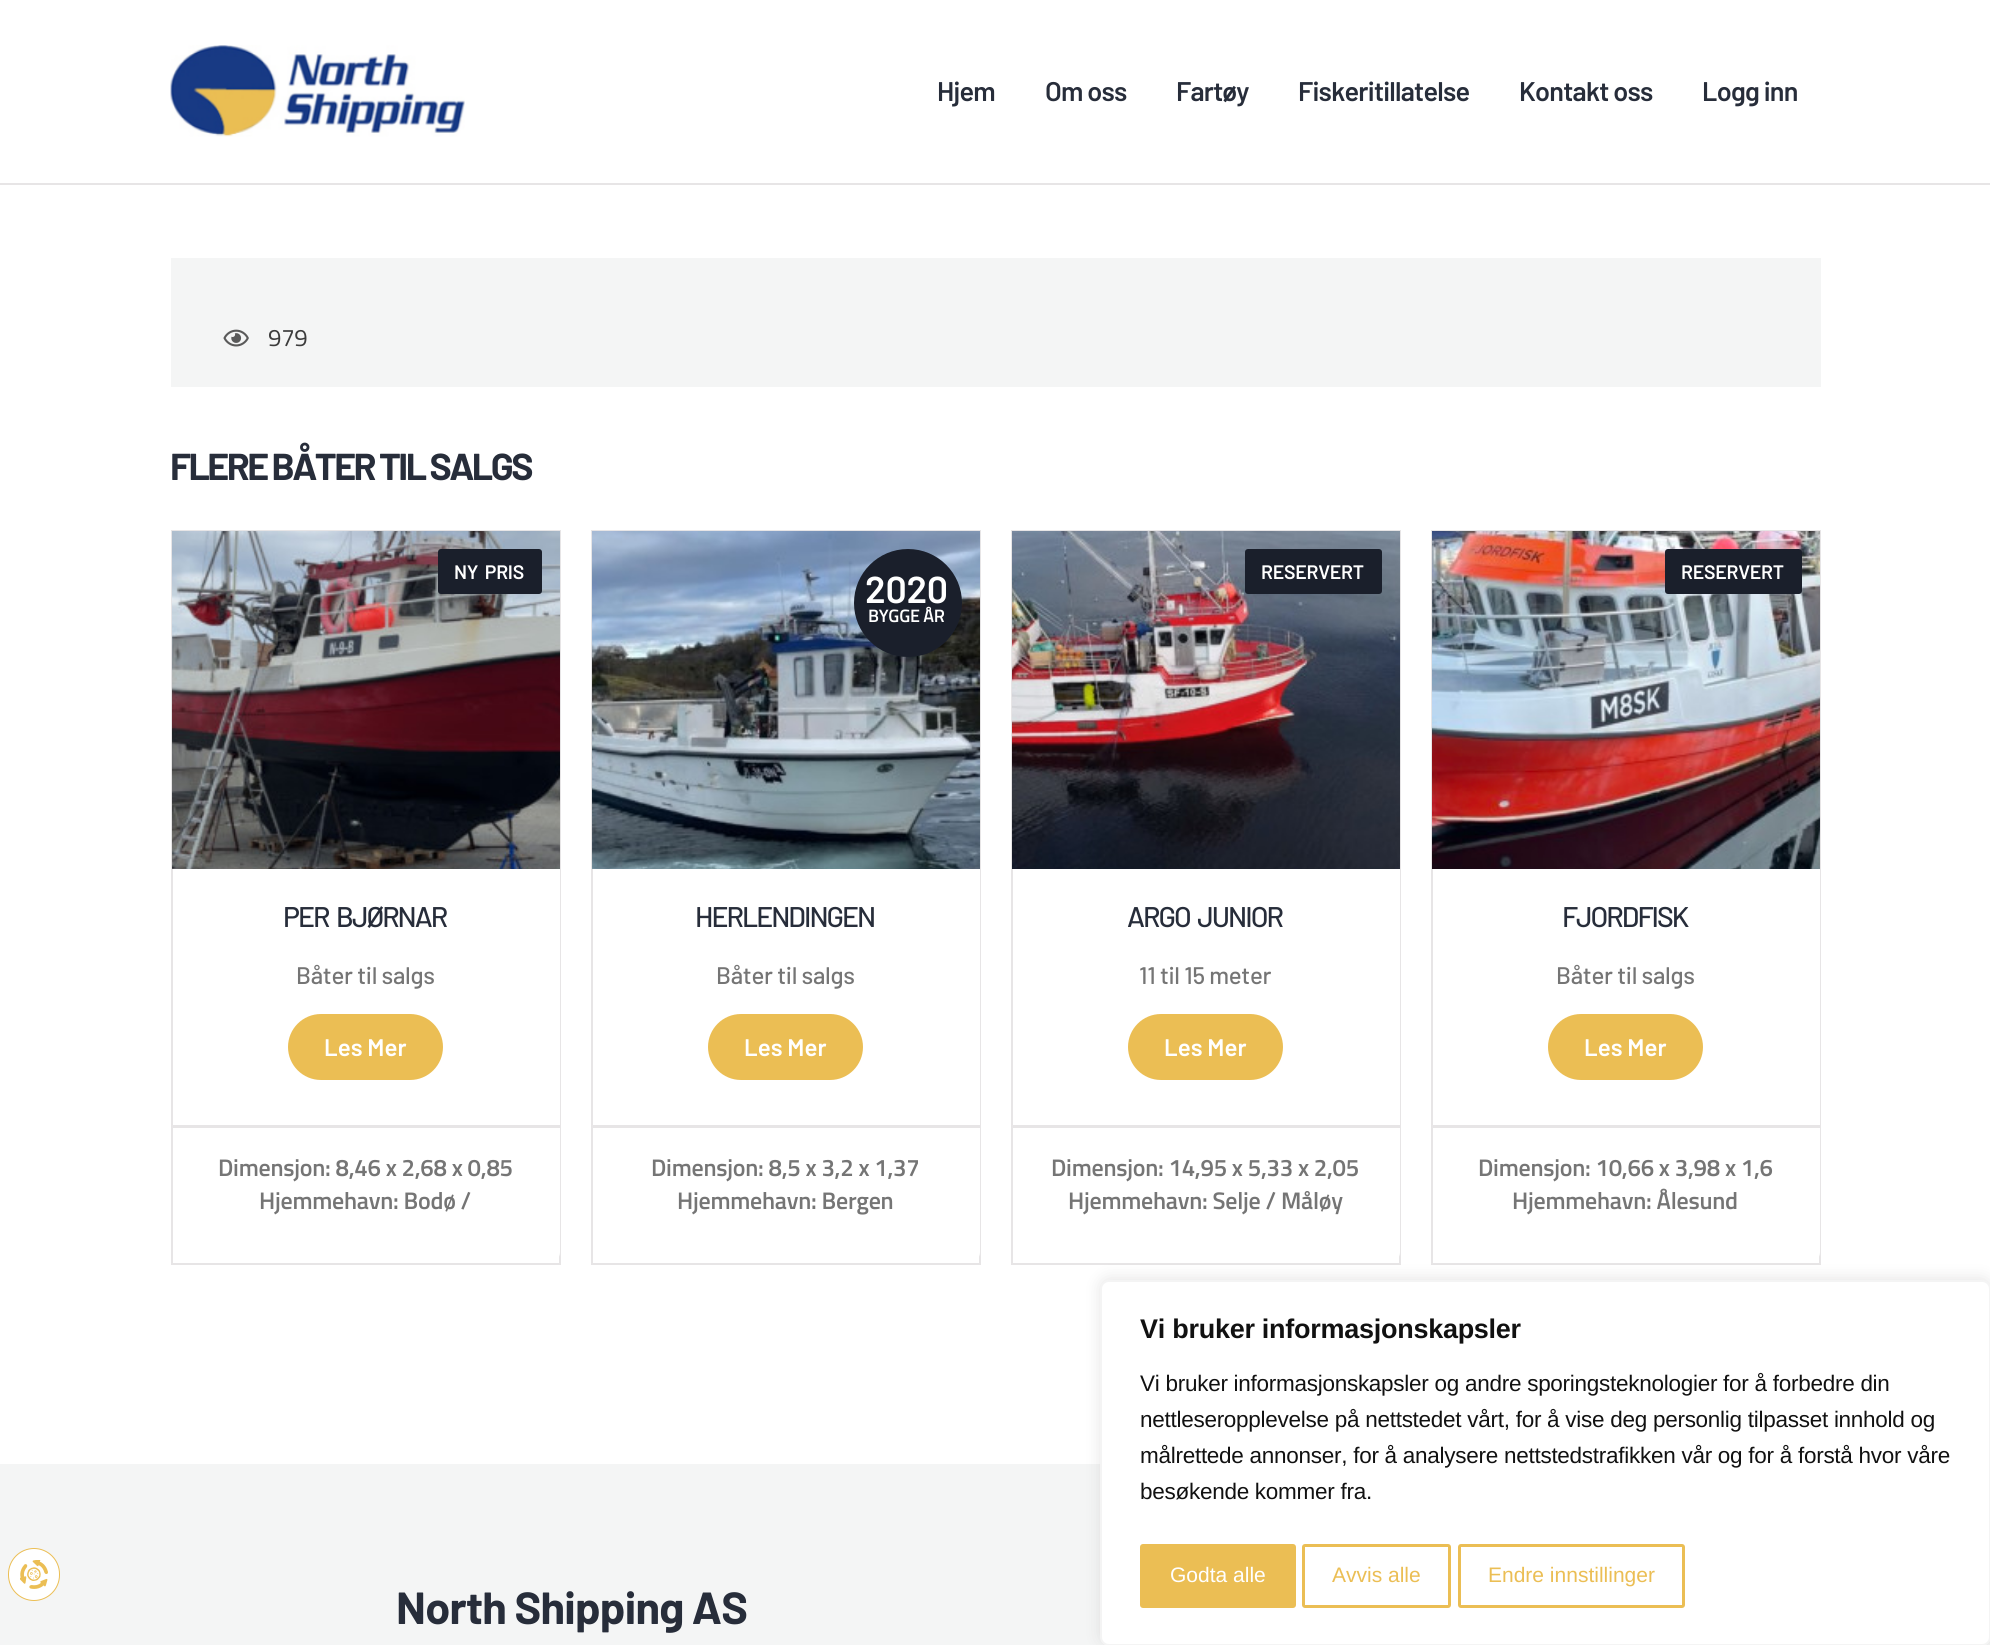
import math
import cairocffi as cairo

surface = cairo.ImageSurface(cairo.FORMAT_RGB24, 1990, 1645)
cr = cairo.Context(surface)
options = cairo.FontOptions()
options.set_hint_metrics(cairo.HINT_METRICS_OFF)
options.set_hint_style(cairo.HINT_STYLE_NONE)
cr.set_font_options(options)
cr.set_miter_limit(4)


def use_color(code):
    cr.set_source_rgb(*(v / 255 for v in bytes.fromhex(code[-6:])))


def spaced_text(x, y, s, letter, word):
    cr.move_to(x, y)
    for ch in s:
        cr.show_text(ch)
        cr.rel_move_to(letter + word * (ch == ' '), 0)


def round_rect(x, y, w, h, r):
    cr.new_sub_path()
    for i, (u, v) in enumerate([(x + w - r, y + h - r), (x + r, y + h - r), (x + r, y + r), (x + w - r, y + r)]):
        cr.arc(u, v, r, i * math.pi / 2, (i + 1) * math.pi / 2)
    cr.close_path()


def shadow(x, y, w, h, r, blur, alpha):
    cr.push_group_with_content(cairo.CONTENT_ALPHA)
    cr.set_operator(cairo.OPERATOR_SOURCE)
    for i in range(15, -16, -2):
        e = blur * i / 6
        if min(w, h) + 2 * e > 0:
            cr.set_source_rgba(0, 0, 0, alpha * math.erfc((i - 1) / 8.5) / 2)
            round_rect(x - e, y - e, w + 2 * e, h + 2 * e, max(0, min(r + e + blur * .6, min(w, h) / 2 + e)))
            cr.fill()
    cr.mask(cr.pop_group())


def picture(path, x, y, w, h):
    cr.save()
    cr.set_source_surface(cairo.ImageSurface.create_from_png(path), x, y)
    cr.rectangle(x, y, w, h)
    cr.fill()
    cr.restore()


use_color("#ffffff")
cr.paint()
use_color("#e7e5e6")
cr.rectangle(0, 183, 1990, 2)
cr.fill()
picture("img1.png", 170, 45, 295, 92)
cr.select_font_face("Barlow SemiBold")
cr.set_font_size(27)
use_color("#272d3a")
spaced_text(937, 101, "Hjem", -0.75, 0)
spaced_text(1045, 101, "Om oss", -0.75, 0)
spaced_text(1176, 101, "Fartøy", -0.75, 0)
spaced_text(1298, 101, "Fiskeritillatelse", -0.75, 0)
spaced_text(1519, 101, "Kontakt oss", -0.75, 0)
spaced_text(1702, 101, "Logg inn", -0.75, 0)
use_color("#f4f5f5")
cr.rectangle(171, 258, 1650, 129)
cr.fill()
picture("img2.png", 223, 329, 26, 18)
cr.select_font_face("Titillium Web")
cr.set_font_size(24)
use_color("#3c3c3c")
spaced_text(268, 346, "979", -0.27, 0)
cr.select_font_face("Barlow", cairo.FONT_SLANT_NORMAL, cairo.FONT_WEIGHT_BOLD)
cr.set_font_size(37.5)
use_color("#272d3a")
spaced_text(170, 480, "FLERE BÅTER TIL SALGS", -2.55, 0)
cr.rectangle(172, 531, 388, 733)
use_color("#e7e5e6")
cr.stroke()
use_color("#ffffff")
round_rect(173, 531, 387, 732, 11)
cr.fill()
picture("img3.png", 172, 531, 388, 338)
use_color("#1a1f2b")
round_rect(438, 549, 104, 45, 3)
cr.fill()
cr.select_font_face("Barlow SemiBold")
cr.set_font_size(19.5)
use_color("#ffffff")
spaced_text(454, 579, "NY PRIS", -0.27, 3)
cr.select_font_face("Barlow Medium")
cr.set_font_size(28.5)
use_color("#272d3a")
spaced_text(283, 927, "PER BJØRNAR", -2, 4)
cr.set_font_size(24)
use_color("#757575")
spaced_text(296, 984, "Båter til salgs", -0.27, 0)
use_color("#ebbe54")
round_rect(288, 1014, 155, 66, 33)
cr.fill()
cr.select_font_face("Barlow SemiBold")
use_color("#ffffff")
cr.move_to(324, 1056)
cr.show_text("Les Mer")
use_color("#e7e5e6")
cr.rectangle(173, 1125, 387, 3)
cr.fill()
cr.select_font_face("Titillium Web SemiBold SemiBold")
use_color("#757575")
spaced_text(218, 1176, "Dimensjon: 8,46 x 2,68 x 0,85", -0.27, 0)
spaced_text(259, 1209, "Hjemmehavn: Bodø /", -0.27, 0)
cr.rectangle(592, 531, 388, 733)
use_color("#e7e5e6")
cr.stroke()
use_color("#ffffff")
round_rect(593, 531, 387, 732, 11)
cr.fill()
picture("img4.png", 592, 531, 388, 338)
use_color("#1a1f2b")
cr.arc(908, 603, 54, 0, 2 * math.pi)
cr.fill()
cr.select_font_face("Barlow SemiBold")
cr.set_font_size(37.5)
use_color("#ffffff")
spaced_text(865, 603, "2020", -0.27, 0)
cr.select_font_face("Titillium Web SemiBold SemiBold")
cr.set_font_size(18)
spaced_text(868, 622, "BYGGE ÅR", -0.27, 0)
cr.select_font_face("Barlow Medium")
cr.set_font_size(28.5)
use_color("#272d3a")
spaced_text(695, 927, "HERLENDINGEN", -2, 0)
cr.set_font_size(24)
use_color("#757575")
spaced_text(716, 984, "Båter til salgs", -0.27, 0)
use_color("#ebbe54")
round_rect(708, 1014, 155, 66, 33)
cr.fill()
cr.select_font_face("Barlow SemiBold")
use_color("#ffffff")
cr.move_to(744, 1056)
cr.show_text("Les Mer")
use_color("#e7e5e6")
cr.rectangle(593, 1125, 387, 3)
cr.fill()
cr.select_font_face("Titillium Web SemiBold SemiBold")
use_color("#757575")
spaced_text(651, 1176, "Dimensjon: 8,5 x 3,2 x 1,37", -0.27, 0)
spaced_text(677, 1209, "Hjemmehavn: Bergen", -0.27, 0)
cr.rectangle(1012, 531, 388, 733)
use_color("#e7e5e6")
cr.stroke()
use_color("#ffffff")
round_rect(1013, 531, 387, 732, 11)
cr.fill()
picture("img5.png", 1012, 531, 388, 338)
use_color("#1a1f2b")
round_rect(1245, 549, 137, 45, 3)
cr.fill()
cr.select_font_face("Barlow SemiBold")
cr.set_font_size(19.5)
use_color("#ffffff")
spaced_text(1261, 579, "RESERVERT", -0.27, 0)
cr.select_font_face("Barlow Medium")
cr.set_font_size(28.5)
use_color("#272d3a")
spaced_text(1127, 927, "ARGO JUNIOR", -2, 4)
cr.set_font_size(24)
use_color("#757575")
spaced_text(1139, 984, "11 til 15 meter", -0.27, 0)
use_color("#ebbe54")
round_rect(1128, 1014, 155, 66, 33)
cr.fill()
cr.select_font_face("Barlow SemiBold")
use_color("#ffffff")
cr.move_to(1164, 1056)
cr.show_text("Les Mer")
use_color("#e7e5e6")
cr.rectangle(1013, 1125, 387, 3)
cr.fill()
cr.select_font_face("Titillium Web SemiBold SemiBold")
use_color("#757575")
spaced_text(1051, 1176, "Dimensjon: 14,95 x 5,33 x 2,05", -0.27, 0)
spaced_text(1068, 1209, "Hjemmehavn: Selje / Måløy", -0.27, 0)
cr.rectangle(1432, 531, 388, 733)
use_color("#e7e5e6")
cr.stroke()
use_color("#ffffff")
round_rect(1433, 531, 387, 732, 11)
cr.fill()
picture("img6.png", 1432, 531, 388, 338)
use_color("#1a1f2b")
round_rect(1665, 549, 137, 45, 3)
cr.fill()
cr.select_font_face("Barlow SemiBold")
cr.set_font_size(19.5)
use_color("#ffffff")
spaced_text(1681, 579, "RESERVERT", -0.27, 0)
cr.select_font_face("Barlow Medium")
cr.set_font_size(28.5)
use_color("#272d3a")
spaced_text(1562, 927, "FJORDFISK", -2, 0)
cr.set_font_size(24)
use_color("#757575")
spaced_text(1556, 984, "Båter til salgs", -0.27, 0)
use_color("#ebbe54")
round_rect(1548, 1014, 155, 66, 33)
cr.fill()
cr.select_font_face("Barlow SemiBold")
use_color("#ffffff")
cr.move_to(1584, 1056)
cr.show_text("Les Mer")
use_color("#e7e5e6")
cr.rectangle(1433, 1125, 387, 3)
cr.fill()
cr.select_font_face("Titillium Web SemiBold SemiBold")
use_color("#757575")
spaced_text(1478, 1176, "Dimensjon: 10,66 x 3,98 x 1,6", -0.27, 0)
spaced_text(1512, 1209, "Hjemmehavn: Ålesund", -0.27, 0)
use_color("#f4f5f5")
cr.rectangle(0, 1464, 1990, 181)
cr.fill()
cr.select_font_face("Barlow", cairo.FONT_SLANT_NORMAL, cairo.FONT_WEIGHT_BOLD)
cr.set_font_size(45)
use_color("#272d3a")
spaced_text(396, 1624, "North Shipping AS", -0.75, 0)
use_color("#ffffff")
round_rect(8.5, 1548.5, 51, 52, 25.5)
cr.fill_preserve()
use_color("#ebbe54")
cr.set_line_width(1)
cr.stroke()
picture("img7.png", 20, 1560, 28, 29)
use_color("#acabab")
shadow(1100, 1278, 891, 366, 9, 7.5, 0.3)
use_color("#ffffff")
round_rect(1101, 1281, 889, 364, 8)
cr.fill_preserve()
use_color("#f4f4f4")
cr.set_line_width(2)
cr.stroke()
cr.select_font_face("Liberation Sans", cairo.FONT_SLANT_NORMAL, cairo.FONT_WEIGHT_BOLD)
cr.set_font_size(27)
use_color("#111111")
spaced_text(1140, 1338, "Vi bruker informasjonskapsler", -0.27, 0)
cr.select_font_face("Liberation Sans")
cr.set_font_size(22.5)
spaced_text(1140, 1391, "Vi bruker informasjonskapsler og andre sporingsteknologier for å forbedre din", -0.27, 0)
spaced_text(1140, 1427, "nettleseropplevelse på nettstedet vårt, for å vise deg personlig tilpasset innhold og", -0.27, 0)
spaced_text(1140, 1463, "målrettede annonser, for å analysere nettstedstrafikken vår og for å forstå hvor våre", -0.27, 0)
spaced_text(1140, 1499, "besøkende kommer fra.", -0.27, 0)
use_color("#ebbe54")
round_rect(1141.5, 1545.5, 153, 61, 1.5)
cr.fill_preserve()
cr.set_line_width(3)
cr.stroke()
cr.set_font_size(21)
use_color("#ffffff")
cr.move_to(1170, 1582)
cr.show_text("Godta alle")
round_rect(1303.5, 1545.5, 146, 61, 1.5)
use_color("#ebbe54")
cr.stroke()
cr.move_to(1332, 1582)
cr.show_text("Avvis alle")
round_rect(1459.5, 1545.5, 224, 61, 1.5)
cr.stroke()
cr.move_to(1488, 1582)
cr.show_text("Endre innstillinger")
surface.write_to_png("result.png")
